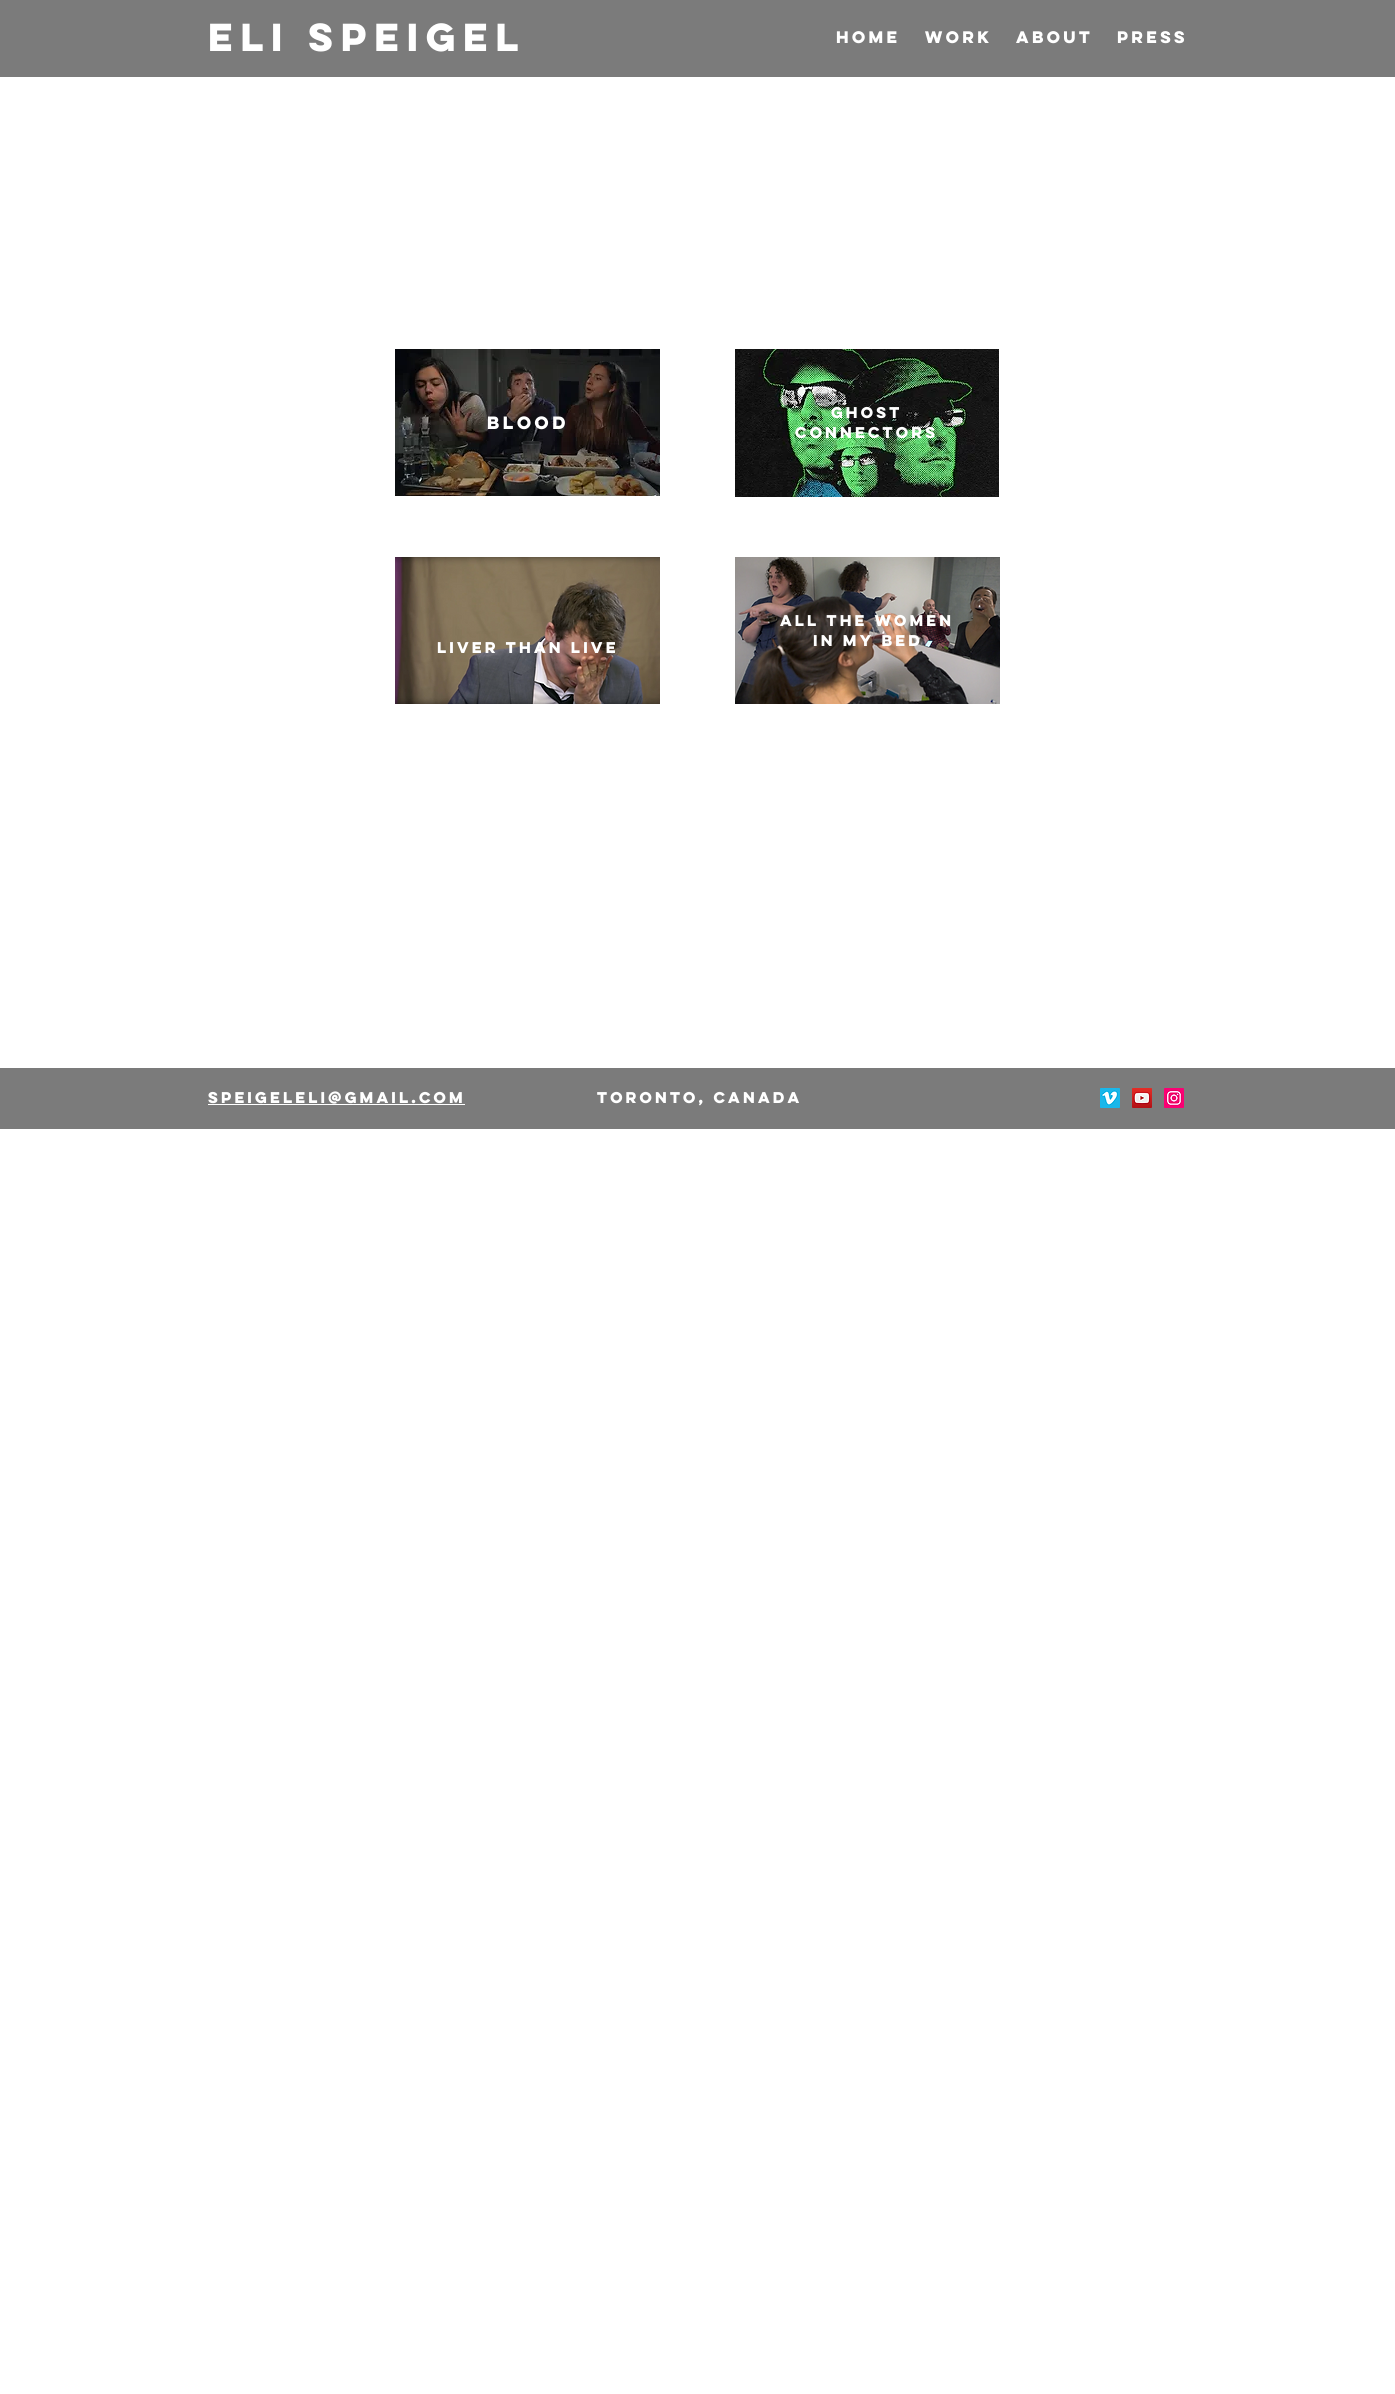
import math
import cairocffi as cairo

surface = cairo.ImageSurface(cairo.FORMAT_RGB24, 1395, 2394)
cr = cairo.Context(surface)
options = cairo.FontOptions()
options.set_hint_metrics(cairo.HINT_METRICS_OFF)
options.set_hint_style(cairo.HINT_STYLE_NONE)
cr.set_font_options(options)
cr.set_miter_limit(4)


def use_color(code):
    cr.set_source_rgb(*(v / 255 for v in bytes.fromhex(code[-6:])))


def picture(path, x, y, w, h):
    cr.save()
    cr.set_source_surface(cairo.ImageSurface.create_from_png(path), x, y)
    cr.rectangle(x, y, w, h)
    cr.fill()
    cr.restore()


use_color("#ffffff")
cr.paint()
use_color("#7b7b7b")
cr.rectangle(0, 0, 1395, 77)
cr.fill()
cr.select_font_face("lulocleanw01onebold", cairo.FONT_SLANT_NORMAL, cairo.FONT_WEIGHT_BOLD)
cr.set_font_size(35)
use_color("#ffffff")
cr.move_to(208, 51)
cr.show_text("ELI SPEIGEL")
cr.set_font_size(15)
cr.move_to(836, 43)
cr.show_text("Home")
cr.move_to(925, 43)
cr.show_text("Work")
cr.move_to(1016, 43)
cr.show_text("About")
cr.move_to(1117, 43)
cr.show_text("Press")
picture("img1.png", 395, 349, 265, 147)
picture("img2.png", 735, 349, 264, 148)
cr.set_font_size(16)
cr.move_to(487, 429)
cr.show_text("Blood")
cr.set_font_size(14)
cr.move_to(831, 418)
cr.show_text("Ghost")
cr.move_to(795, 438)
cr.show_text("Connectors")
picture("img3.png", 395, 557, 265, 147)
picture("img4.png", 735, 557, 265, 147)
cr.move_to(780, 626)
cr.show_text("All The Women")
cr.move_to(813, 646)
cr.show_text("In My Bed")
cr.move_to(437, 653)
cr.show_text("Liver than Live")
use_color("#7b7b7b")
cr.rectangle(0, 1068, 1395, 61)
cr.fill()
use_color("#ffffff")
cr.move_to(208, 1103)
cr.show_text("SPEIGELELI@GMAIL.COm")
cr.rectangle(208, 1104, 257, 1)
cr.fill()
cr.move_to(597, 1103)
cr.show_text("Toronto, canada")
picture("img5.png", 1100, 1088, 20, 20)
picture("img6.png", 1132, 1088, 20, 20)
picture("img7.png", 1164, 1088, 20, 20)
surface.write_to_png("result.png")
